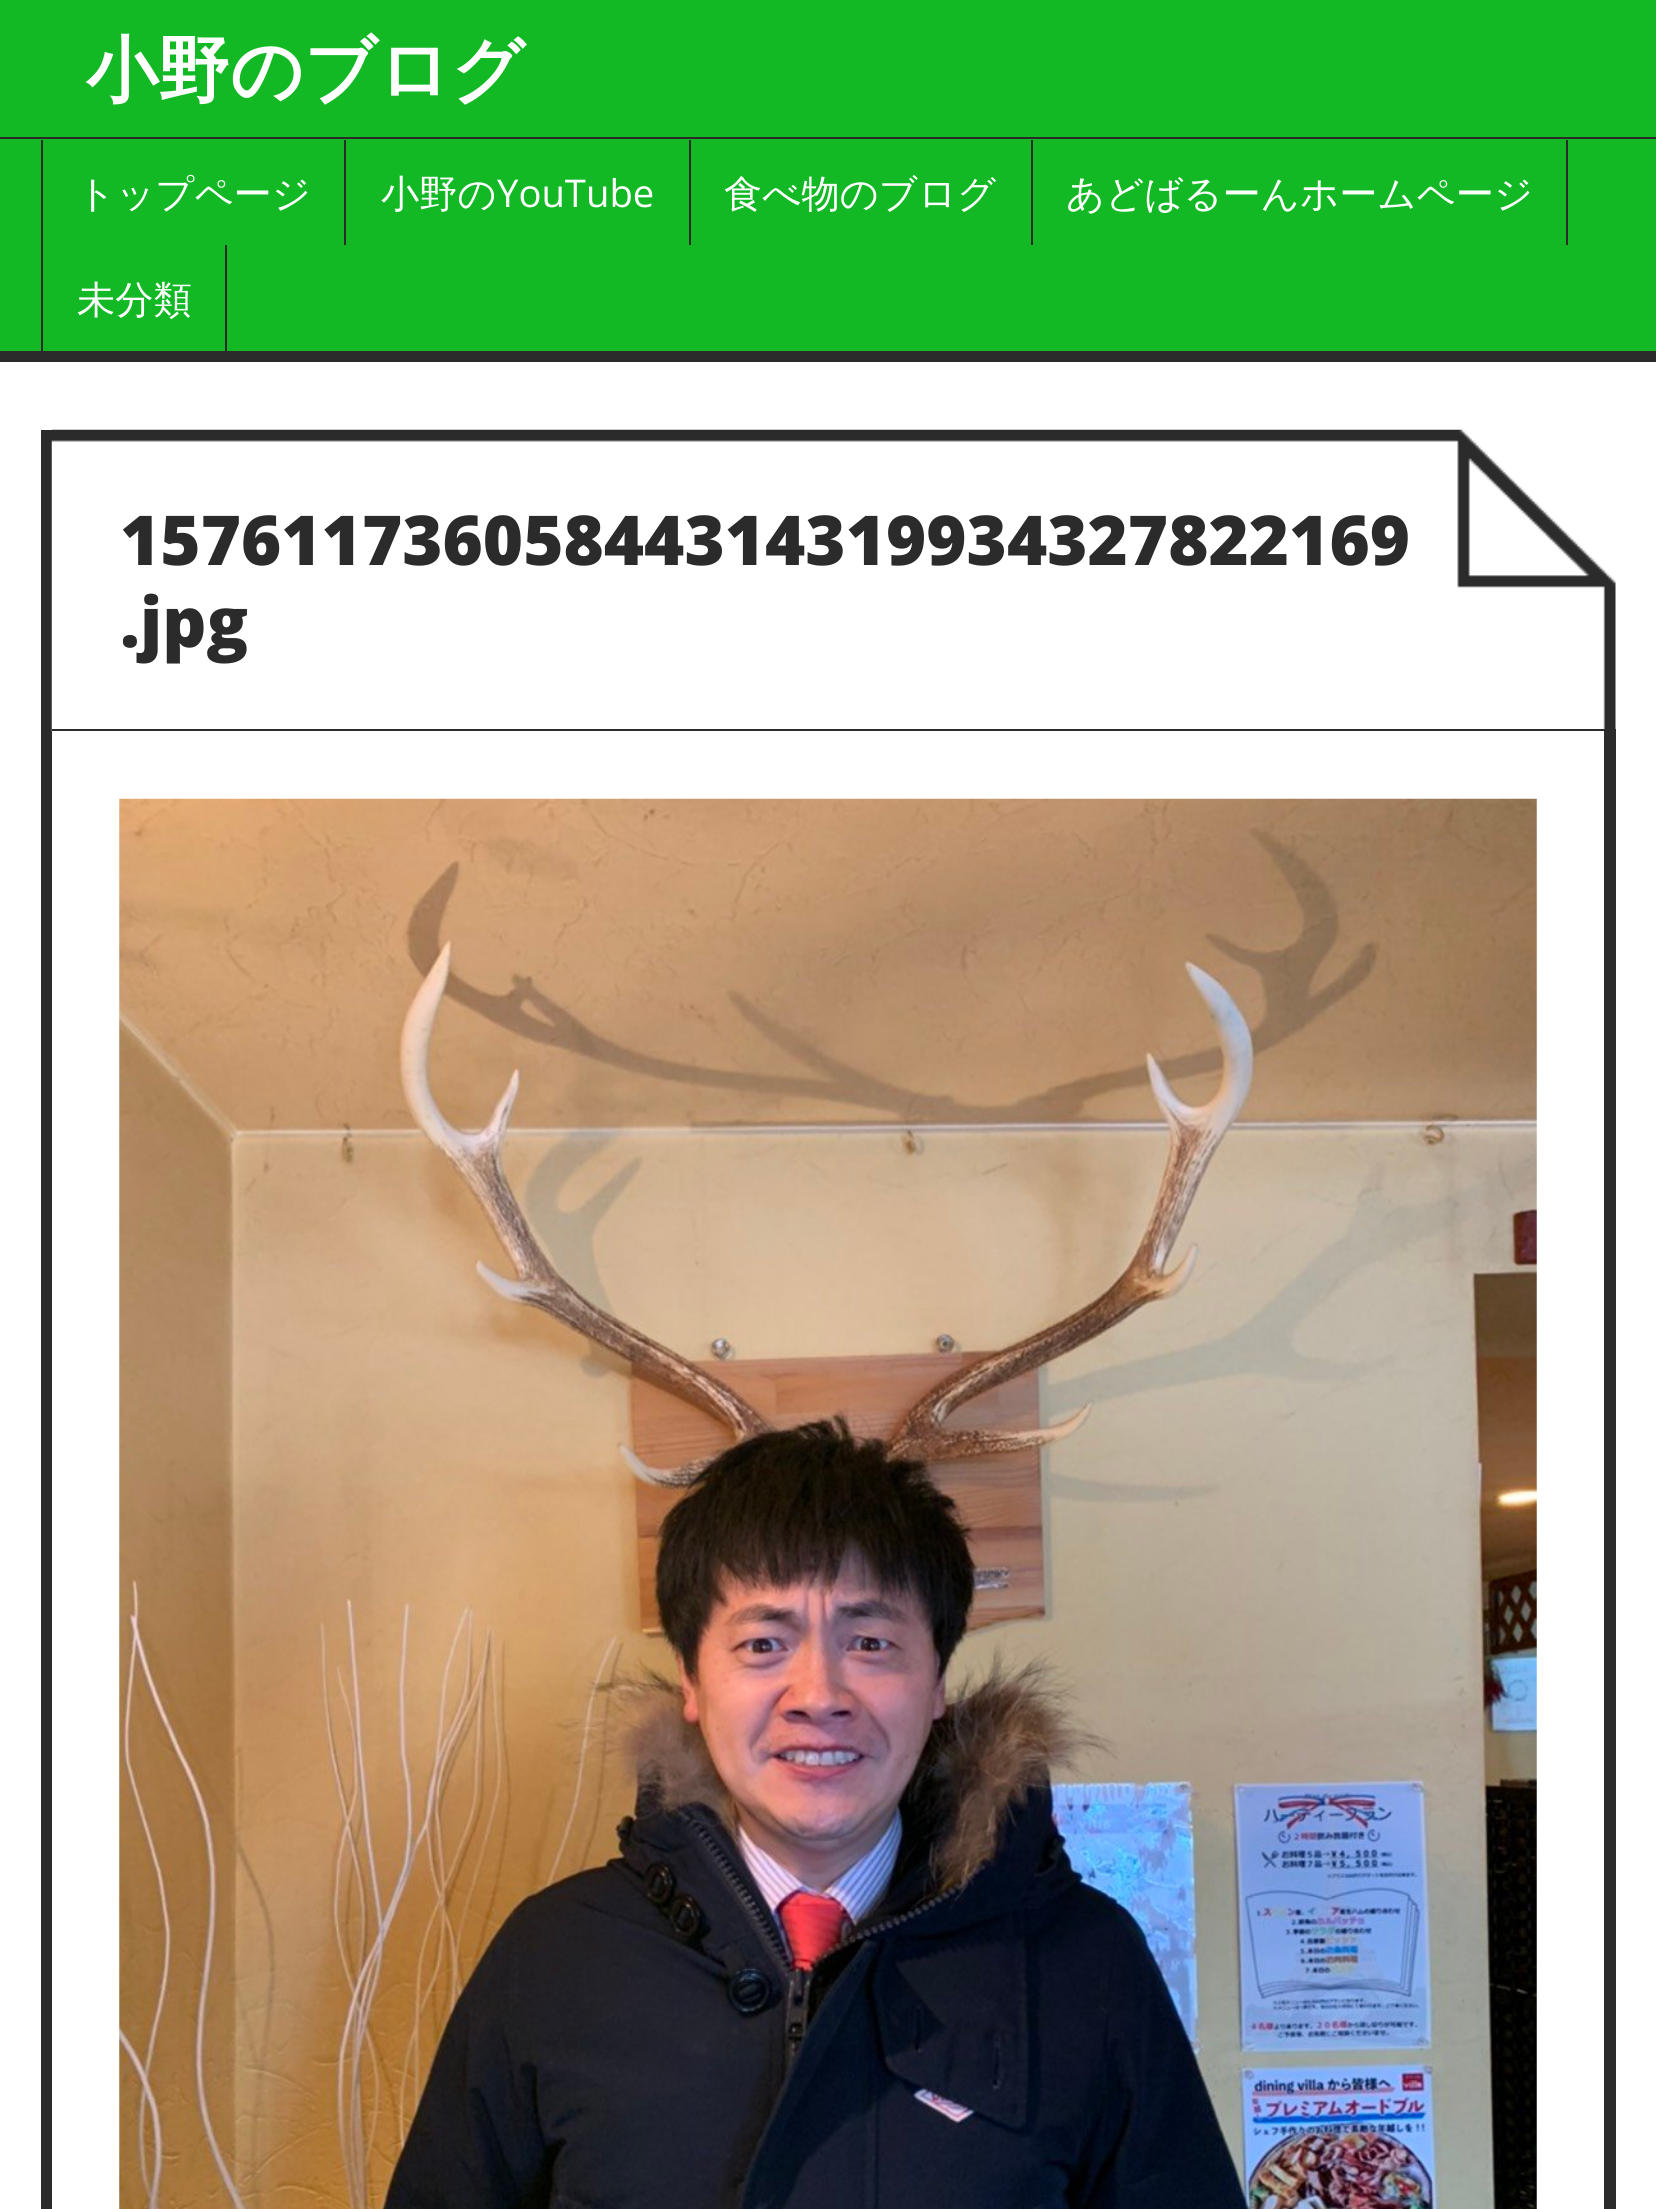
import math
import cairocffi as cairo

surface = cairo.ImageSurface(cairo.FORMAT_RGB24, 1656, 2209)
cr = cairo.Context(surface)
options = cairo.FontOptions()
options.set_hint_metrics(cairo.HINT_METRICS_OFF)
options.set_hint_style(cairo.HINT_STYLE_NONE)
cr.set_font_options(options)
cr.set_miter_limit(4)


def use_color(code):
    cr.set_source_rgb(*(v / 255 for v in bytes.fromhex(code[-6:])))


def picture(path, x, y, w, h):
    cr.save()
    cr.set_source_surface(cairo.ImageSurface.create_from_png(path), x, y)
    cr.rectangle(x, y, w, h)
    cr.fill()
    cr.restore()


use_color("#ffffff")
cr.paint()
use_color("#12b924")
cr.rectangle(0, 0, 1656, 351)
cr.fill()
use_color("#2b2b2b")
cr.rectangle(0, 137, 1656, 2)
cr.fill()
cr.select_font_face("WenQuanYi Zen Hei", cairo.FONT_SLANT_NORMAL, cairo.FONT_WEIGHT_BOLD)
cr.set_font_size(72)
use_color("#ffffff")
cr.move_to(86, 95)
cr.show_text("小野のブログ")
use_color("#2b2b2b")
cr.rectangle(0, 351, 1656, 11)
cr.fill()
cr.rectangle(41, 140, 2, 211)
cr.fill()
cr.rectangle(344, 140, 2, 105)
cr.fill()
cr.select_font_face("WenQuanYi Zen Hei Medium")
cr.set_font_size(38.25)
use_color("#ffffff")
cr.move_to(77, 207)
cr.show_text("トップページ")
use_color("#2b2b2b")
cr.rectangle(689, 140, 2, 105)
cr.fill()
use_color("#ffffff")
cr.move_to(381, 207)
cr.show_text("小野の")
cr.select_font_face("Open Sans")
cr.move_to(497, 207)
cr.show_text("YouTube")
use_color("#2b2b2b")
cr.rectangle(1031, 140, 2, 105)
cr.fill()
cr.select_font_face("WenQuanYi Zen Hei Medium")
use_color("#ffffff")
cr.move_to(724, 207)
cr.show_text("食べ物のブログ")
use_color("#2b2b2b")
cr.rectangle(1566, 140, 2, 105)
cr.fill()
use_color("#ffffff")
cr.move_to(1066, 207)
cr.show_text("あどばるーんホームページ")
use_color("#2b2b2b")
cr.rectangle(225, 245, 2, 106)
cr.fill()
use_color("#ffffff")
cr.move_to(77, 313)
cr.show_text("未分類")
use_color("#2b2b2b")
cr.rectangle(41, 430, 11, 1779)
cr.fill()
picture("img1.png", 51, 429, 1565, 303)
cr.rectangle(52, 729, 1564, 2)
cr.fill()
cr.select_font_face("Open Sans ExtraBold")
cr.set_font_size(68.8)
cr.move_to(120, 565)
cr.show_text("15761173605844314319934327822169")
cr.move_to(120, 647)
cr.show_text(".jpg")
use_color("#ffffff")
cr.rectangle(1603, 731, 1, 1)
cr.fill()
use_color("#2b2b2b")
cr.rectangle(1604, 731, 12, 1478)
cr.fill()
picture("img2.png", 119, 798, 1418, 1411)
surface.write_to_png("result.png")
